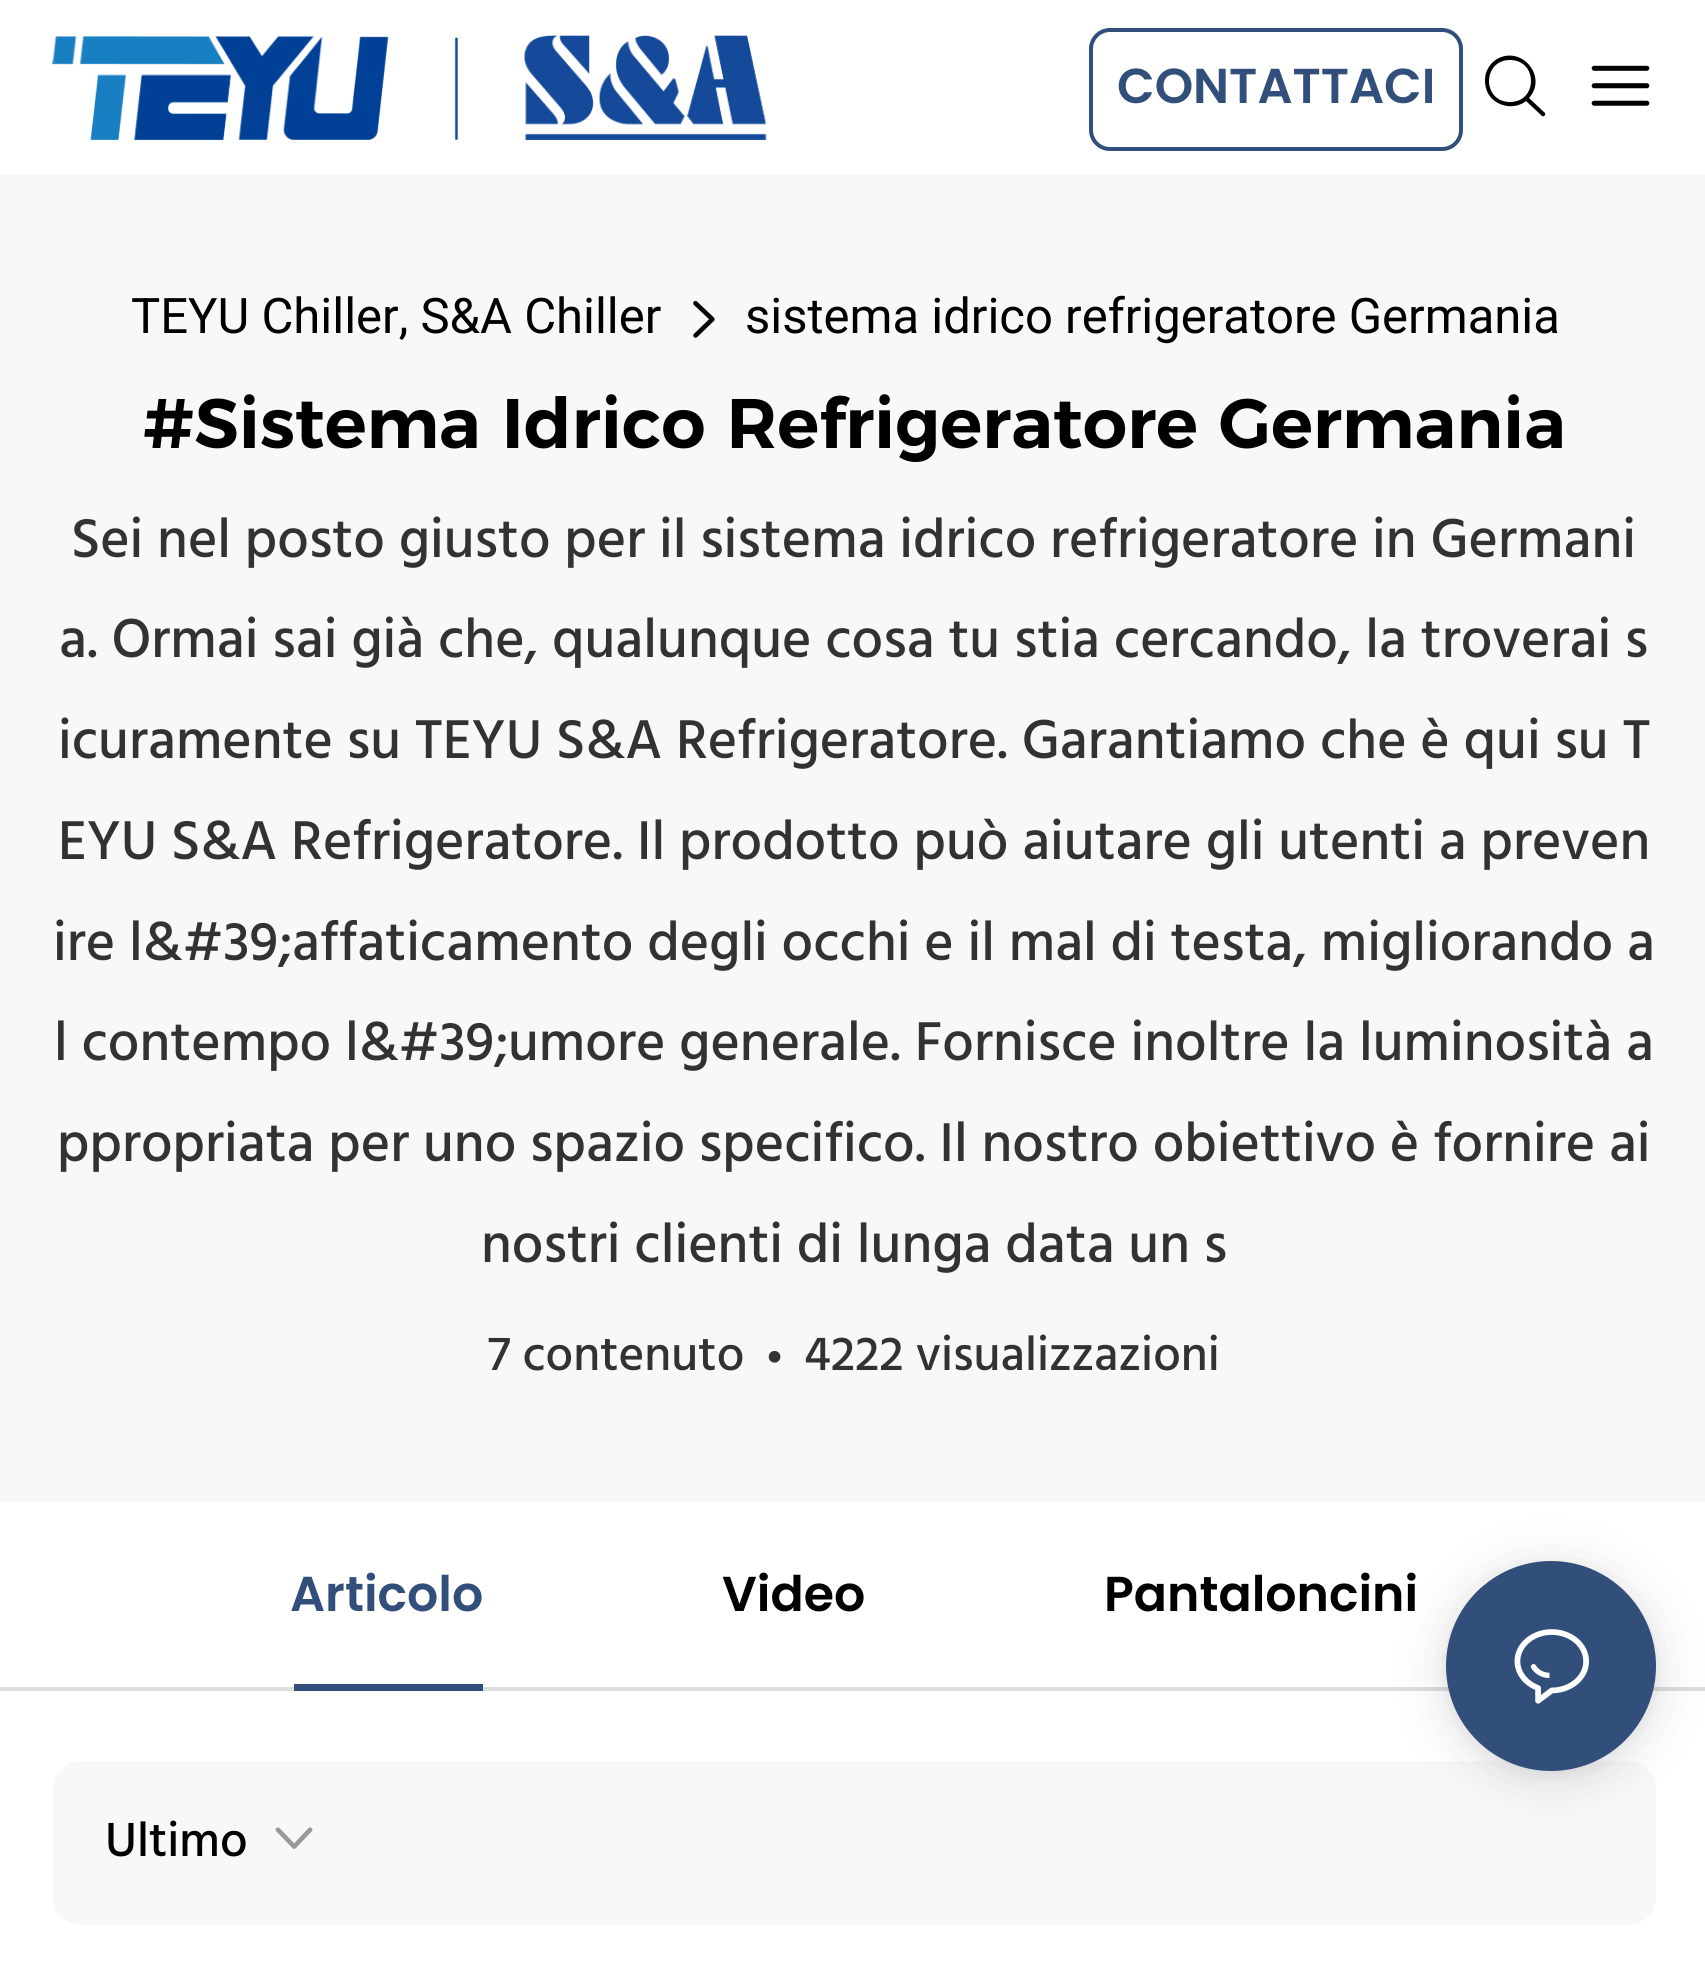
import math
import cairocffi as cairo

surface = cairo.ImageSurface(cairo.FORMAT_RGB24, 1705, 1965)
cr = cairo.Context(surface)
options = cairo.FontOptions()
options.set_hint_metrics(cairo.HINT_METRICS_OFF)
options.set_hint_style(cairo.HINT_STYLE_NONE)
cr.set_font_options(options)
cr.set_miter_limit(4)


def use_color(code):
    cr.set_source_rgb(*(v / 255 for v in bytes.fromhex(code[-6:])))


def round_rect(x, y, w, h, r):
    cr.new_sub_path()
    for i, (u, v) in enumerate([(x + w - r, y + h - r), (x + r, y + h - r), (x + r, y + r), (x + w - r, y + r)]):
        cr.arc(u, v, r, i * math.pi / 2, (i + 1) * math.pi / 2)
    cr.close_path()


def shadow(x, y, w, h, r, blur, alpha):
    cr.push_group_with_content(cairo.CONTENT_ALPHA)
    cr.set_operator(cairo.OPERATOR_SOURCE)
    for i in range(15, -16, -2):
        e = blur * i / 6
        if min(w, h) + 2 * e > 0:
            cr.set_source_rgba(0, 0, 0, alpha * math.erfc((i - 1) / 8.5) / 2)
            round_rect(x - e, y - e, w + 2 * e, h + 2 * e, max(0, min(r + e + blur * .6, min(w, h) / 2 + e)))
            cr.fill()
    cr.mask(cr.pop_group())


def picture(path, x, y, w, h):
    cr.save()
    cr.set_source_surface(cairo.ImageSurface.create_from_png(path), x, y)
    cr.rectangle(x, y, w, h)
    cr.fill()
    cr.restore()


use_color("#ffffff")
cr.paint()
picture("img1.png", 52, 35, 715, 105)
round_rect(1091, 30, 370, 119, 19)
use_color("#324f7b")
cr.set_line_width(4)
cr.stroke()
cr.select_font_face("Poppins SemiBold")
cr.set_font_size(49)
cr.move_to(1117, 103)
cr.show_text("CONTATTACI")
use_color("#000000")
cr.new_path()
cr.move_to(1545, 113)
cr.line_to(1529, 98)
cr.curve_to(1548, 77, 1522, 45, 1497, 59)
cr.curve_to(1492, 62, 1488, 67, 1486, 73)
cr.curve_to(1484, 80, 1485, 89, 1489, 95)
cr.curve_to(1497, 107, 1515, 110, 1526, 101)
cr.line_to(1542, 116)
cr.curve_to(1544, 117, 1546, 115, 1545, 113)
cr.close_path()
cr.move_to(1510, 102)
cr.curve_to(1482, 102, 1482, 60, 1510, 60)
cr.curve_to(1538, 60, 1538, 102, 1510, 102)
cr.close_path()
cr.fill()
picture("img2.png", 1591, 65, 59, 41)
use_color("#f8f8f8")
cr.rectangle(0, 175, 1705, 1327)
cr.fill()
cr.select_font_face("Roboto")
use_color("#000000")
cr.move_to(131, 333)
cr.show_text("TEYU Chiller, S&A Chiller")
picture("img3.png", 693, 300, 22, 38)
cr.move_to(745, 333)
cr.show_text("sistema idrico refrigeratore Germania")
cr.select_font_face("Montserrat SemiBold")
cr.set_font_size(70)
cr.move_to(143, 448)
cr.show_text("#Sistema Idrico Refrigeratore Germania")
cr.select_font_face("Hind Medium")
cr.set_font_size(56)
use_color("#323232")
cr.move_to(71, 557)
cr.show_text("Sei nel posto giusto per il sistema idrico refrigeratore in Germani")
cr.move_to(59, 657)
cr.show_text("a. Ormai sai già che, qualunque cosa tu stia cercando, la troverai s")
cr.move_to(58, 758)
cr.show_text("icuramente su TEYU S&A Refrigeratore. Garantiamo che è qui su T")
cr.move_to(58, 859)
cr.show_text("EYU S&A Refrigeratore. Il prodotto può aiutare gli utenti a preven")
cr.move_to(53, 960)
cr.show_text("ire l&#39;affaticamento degli occhi e il mal di testa, migliorando a")
cr.move_to(54, 1060)
cr.show_text("l contempo l&#39;umore generale. Fornisce inoltre la luminosità a")
cr.move_to(57, 1161)
cr.show_text("ppropriata per uno spazio specifico. Il nostro obiettivo è fornire ai")
cr.move_to(481, 1262)
cr.show_text("nostri clienti di lunga data un s")
cr.set_font_size(49)
cr.move_to(488, 1370)
cr.show_text("7 contenuto")
cr.select_font_face("Liberation Serif")
cr.move_to(766, 1373)
cr.show_text("•")
cr.select_font_face("Hind Medium")
cr.move_to(804, 1370)
cr.show_text("4222 visualizzazioni")
use_color("#dddddd")
cr.rectangle(0, 1687, 1705, 4)
cr.fill()
use_color("#324f7b")
cr.rectangle(294, 1684, 189, 7)
cr.fill()
cr.select_font_face("Poppins SemiBold")
cr.move_to(290, 1611)
cr.show_text("Articolo")
use_color("#000000")
cr.move_to(722, 1611)
cr.show_text("Video")
cr.move_to(1104, 1611)
cr.show_text("Pantaloncini")
use_color("#f8f8f8")
round_rect(53, 1761, 1603, 164, 28)
cr.fill()
cr.select_font_face("Hind Medium")
use_color("#000000")
cr.move_to(105, 1856)
cr.show_text("Ultimo")
picture("img4.png", 275, 1827, 38, 22)
use_color("#000000")
shadow(1446, 1568, 210, 210, 105, 28, 0.12)
shadow(1446, 1565, 210, 210, 105, 7, 0.06)
use_color("#324f7b")
cr.arc(1551, 1666, 105, 0, 2 * math.pi)
cr.fill()
picture("img5.png", 1514, 1629, 75, 75)
surface.write_to_png("result.png")
